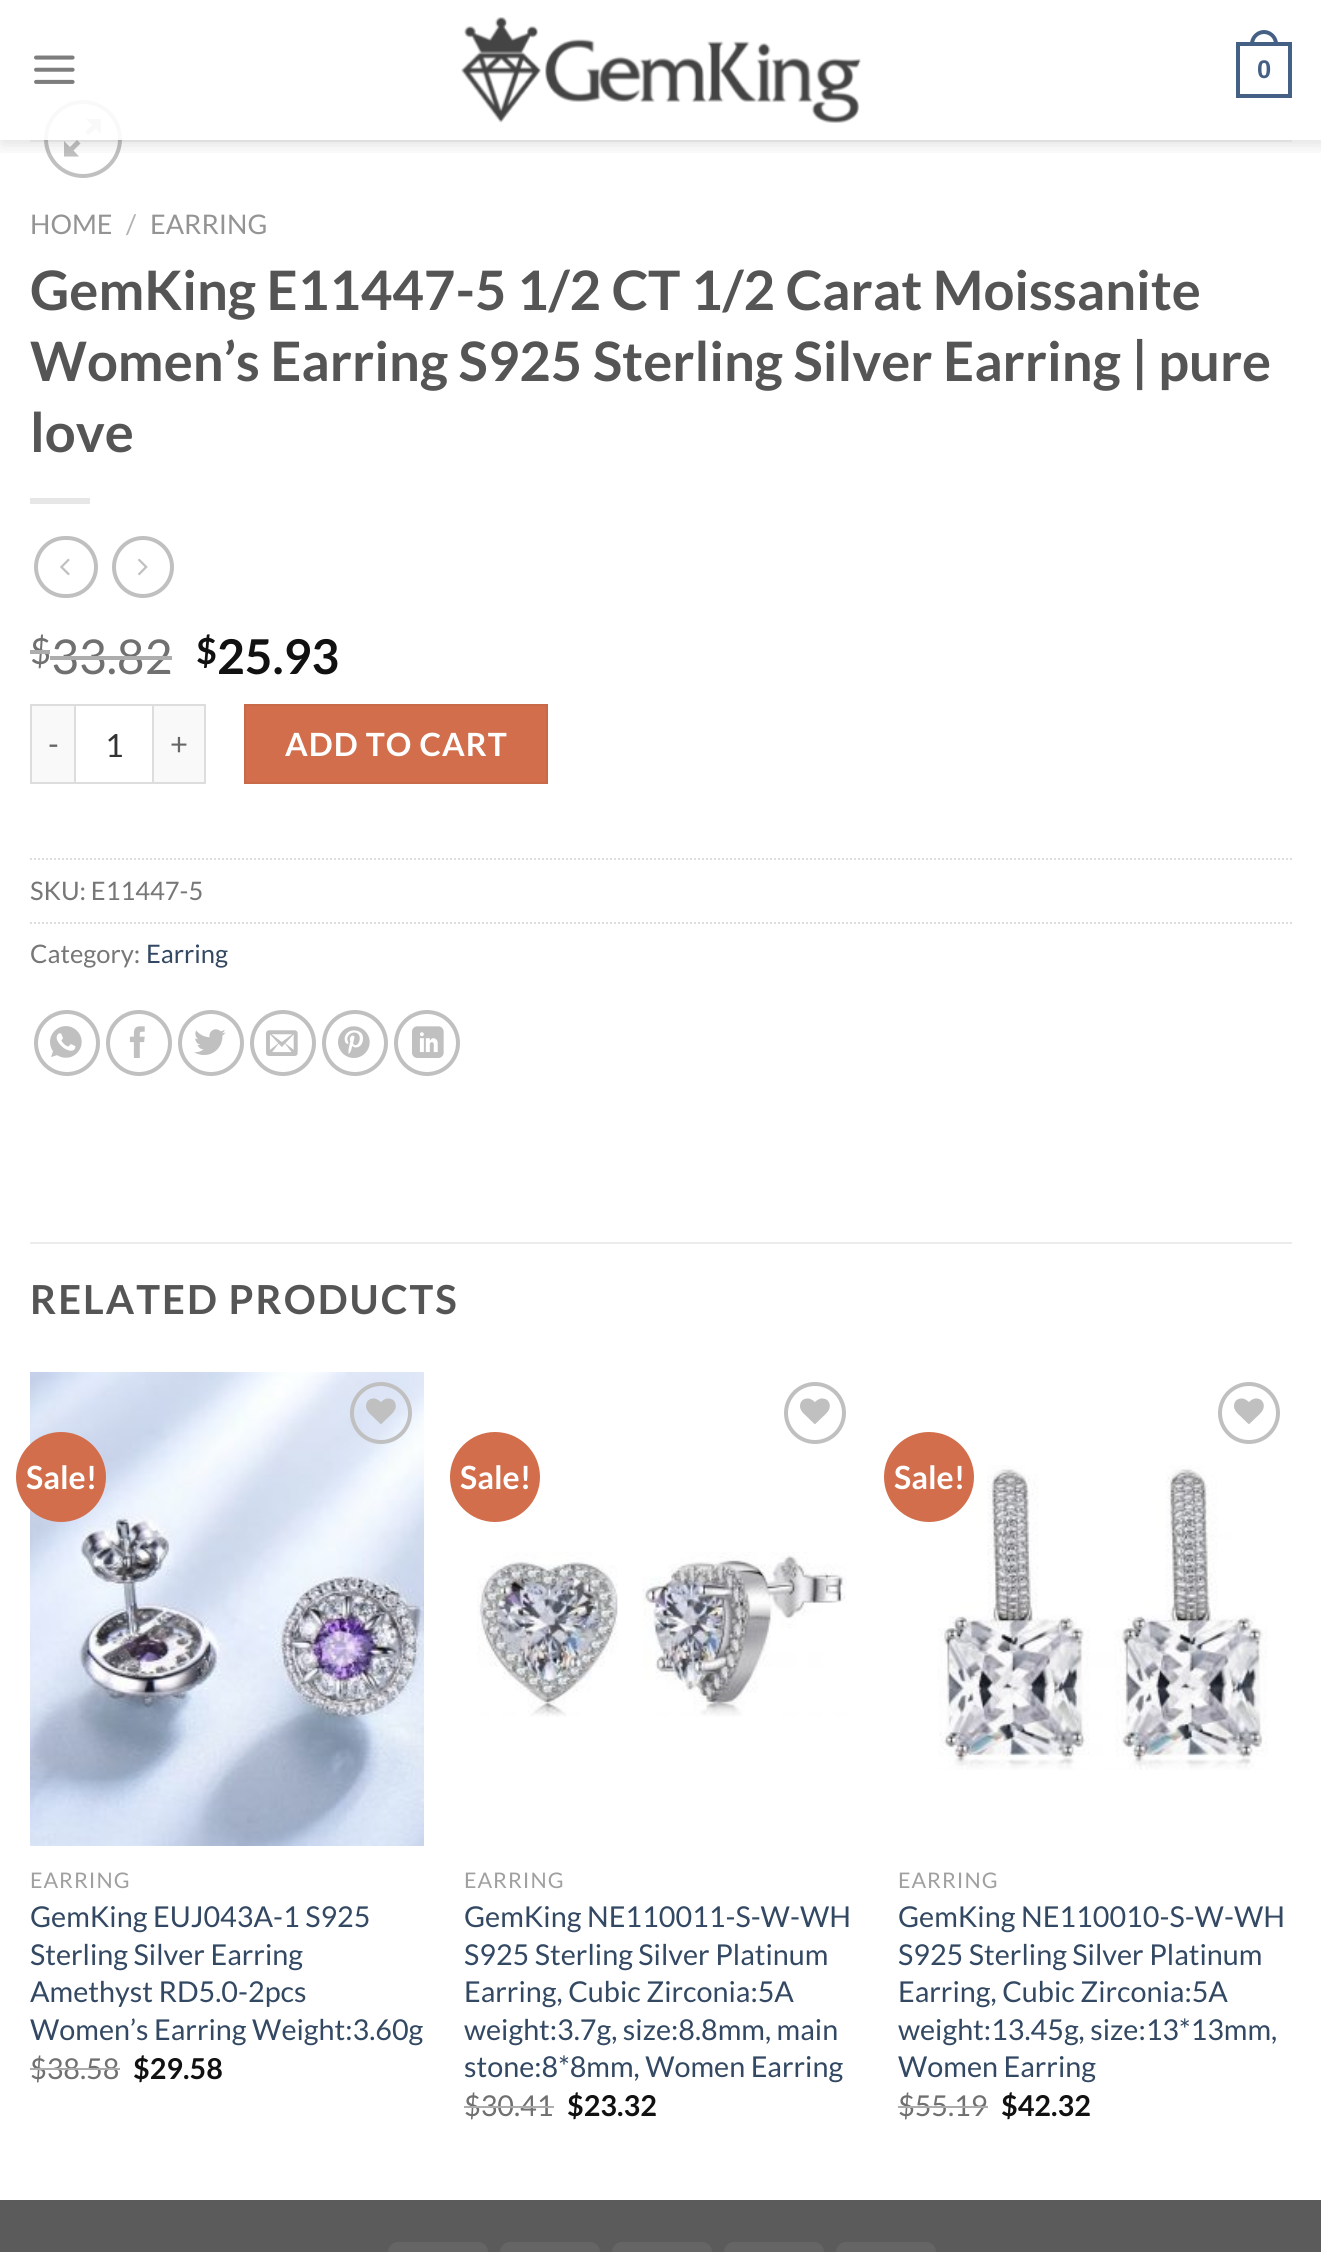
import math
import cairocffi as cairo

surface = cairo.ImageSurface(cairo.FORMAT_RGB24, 1321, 2252)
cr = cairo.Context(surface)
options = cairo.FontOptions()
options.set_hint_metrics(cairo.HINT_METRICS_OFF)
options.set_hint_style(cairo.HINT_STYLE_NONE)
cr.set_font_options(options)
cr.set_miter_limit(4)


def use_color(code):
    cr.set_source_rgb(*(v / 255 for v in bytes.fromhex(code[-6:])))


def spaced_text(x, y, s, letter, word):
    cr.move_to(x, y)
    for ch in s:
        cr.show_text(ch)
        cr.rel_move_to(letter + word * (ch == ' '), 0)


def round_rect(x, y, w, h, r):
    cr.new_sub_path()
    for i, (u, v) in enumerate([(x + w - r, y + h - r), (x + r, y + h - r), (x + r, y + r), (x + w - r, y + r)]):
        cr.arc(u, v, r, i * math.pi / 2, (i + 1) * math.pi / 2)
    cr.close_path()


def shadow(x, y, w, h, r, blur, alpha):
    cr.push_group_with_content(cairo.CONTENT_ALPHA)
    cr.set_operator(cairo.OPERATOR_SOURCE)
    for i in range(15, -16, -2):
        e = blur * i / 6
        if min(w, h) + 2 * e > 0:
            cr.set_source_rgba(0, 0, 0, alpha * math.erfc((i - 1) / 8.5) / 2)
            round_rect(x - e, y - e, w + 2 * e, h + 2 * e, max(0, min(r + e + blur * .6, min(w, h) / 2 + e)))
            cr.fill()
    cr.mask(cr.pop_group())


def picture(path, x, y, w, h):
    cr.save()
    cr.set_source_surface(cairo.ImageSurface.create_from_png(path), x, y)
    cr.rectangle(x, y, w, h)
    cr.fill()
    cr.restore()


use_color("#ffffff")
cr.paint()
cr.arc(83, 139, 37, 0, 2 * math.pi)
use_color("#c0c0c0")
cr.set_line_width(4)
cr.stroke()
cr.new_path()
cr.move_to(101, 119)
cr.line_to(101, 134)
cr.line_to(95.5, 128.5)
cr.line_to(88.5, 135.5)
cr.line_to(85, 132)
cr.line_to(92, 125)
cr.line_to(86, 119)
cr.close_path()
cr.move_to(80.5, 143.5)
cr.line_to(73.5, 150.5)
cr.line_to(79, 156.5)
cr.line_to(64, 156.5)
cr.line_to(64, 141)
cr.line_to(70, 147)
cr.line_to(77, 140)
cr.close_path()
cr.fill()
cr.save()
cr.rectangle(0, 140, 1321, 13)
cr.clip()
use_color("#000000")
shadow(2, 2, 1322, 140, 0, 10, 0.15)
cr.restore()
picture("img1.png", 34, 55, 41, 29)
picture("img2.png", 461, 17, 400, 106)
cr.rectangle(1238, 44, 52, 52)
use_color("#446084")
cr.stroke()
cr.set_fill_rule(cairo.FILL_RULE_EVEN_ODD)
cr.new_path()
cr.move_to(1264, 30)
cr.curve_to(1271.5, 30, 1278, 36.5, 1278, 44)
cr.line_to(1278, 46)
cr.line_to(1250, 46)
cr.line_to(1250, 44)
cr.curve_to(1250, 36.5, 1256.5, 30, 1264, 30)
cr.close_path()
cr.move_to(1264, 34)
cr.curve_to(1269.5, 34, 1274, 38.5, 1274, 44)
cr.line_to(1274, 46)
cr.line_to(1254, 46)
cr.line_to(1254, 44)
cr.curve_to(1254, 38.5, 1258.5, 34, 1264, 34)
cr.close_path()
cr.fill()
cr.select_font_face("Liberation Sans", cairo.FONT_SLANT_NORMAL, cairo.FONT_WEIGHT_BOLD)
cr.set_font_size(25.5)
cr.move_to(1257, 78)
cr.show_text("0")
cr.set_source_rgba(0.467, 0.467, 0.467, 0.1)
cr.rectangle(30, 140, 1262, 2)
cr.fill()
cr.set_source_rgba(1, 1, 1, 0.9)
cr.rectangle(44, 100, 78, 40)
cr.fill()
cr.select_font_face("Lato")
cr.set_font_size(27)
use_color("#949494")
cr.move_to(30, 234)
cr.show_text("HOME")
use_color("#b2b2b2")
cr.move_to(126, 234)
cr.show_text("/")
use_color("#949494")
cr.move_to(150, 234)
cr.show_text("EARRING")
cr.select_font_face("Lato", cairo.FONT_SLANT_NORMAL, cairo.FONT_WEIGHT_BOLD)
cr.set_font_size(54.4)
use_color("#555555")
cr.move_to(30, 310)
cr.show_text("GemKing E11447-5 1/2 CT 1/2 Carat Moissanite")
cr.move_to(30, 381)
cr.show_text("Women’s Earring S925 Sterling Silver Earring | pure")
cr.move_to(30, 452)
cr.show_text("love")
use_color("#e6e6e6")
cr.rectangle(30, 498, 60, 6)
cr.fill()
round_rect(36, 538, 60, 58, 29)
use_color("#c0c0c0")
cr.stroke()
picture("img3.png", 60, 558, 10, 18)
cr.arc(143, 567, 29, 0, 2 * math.pi)
cr.stroke()
picture("img4.png", 138, 558, 10, 18)
cr.select_font_face("Lato")
cr.set_font_size(36)
use_color("#707070")
cr.move_to(30, 664)
cr.show_text("$")
use_color("#adadad")
cr.rectangle(30, 650, 20, 4)
cr.fill()
cr.set_font_size(48)
use_color("#707070")
cr.move_to(51, 674)
cr.show_text("33.82")
use_color("#adadad")
cr.rectangle(50, 656, 122, 4)
cr.fill()
cr.select_font_face("Lato", cairo.FONT_SLANT_NORMAL, cairo.FONT_WEIGHT_BOLD)
cr.set_font_size(36)
use_color("#111111")
cr.move_to(196, 664)
cr.show_text("$")
cr.set_font_size(48)
cr.move_to(217, 674)
cr.show_text("25.93")
use_color("#f9f9f9")
cr.rectangle(32, 706, 42, 76)
cr.fill()
use_color("#dddddd")
cr.rectangle(30, 704, 44, 2)
cr.fill()
cr.rectangle(30, 782, 44, 2)
cr.fill()
cr.rectangle(30, 704, 2, 80)
cr.fill()
cr.select_font_face("Lato")
cr.set_font_size(31)
use_color("#666666")
spaced_text(48, 755, "-", 1, 0)
cr.rectangle(75, 705, 78, 78)
use_color("#dddddd")
cr.set_line_width(2)
cr.stroke()
cr.set_font_size(32)
use_color("#333333")
cr.move_to(105, 757)
cr.show_text("1")
use_color("#f9f9f9")
cr.rectangle(154, 706, 50, 76)
cr.fill()
use_color("#dddddd")
cr.rectangle(154, 704, 52, 2)
cr.fill()
cr.rectangle(204, 704, 2, 80)
cr.fill()
cr.rectangle(154, 782, 52, 2)
cr.fill()
cr.set_font_size(31)
use_color("#666666")
spaced_text(170, 755, "+", 1, 0)
use_color("#d26e4b")
cr.rectangle(245, 705, 302, 78)
cr.fill_preserve()
use_color("#c86947")
cr.stroke()
cr.select_font_face("Lato", cairo.FONT_SLANT_NORMAL, cairo.FONT_WEIGHT_BOLD)
cr.set_font_size(32)
use_color("#ffffff")
spaced_text(285, 756, "ADD TO CART", 1, 0)
cr.new_path()
cr.move_to(30, 859)
cr.line_to(1292, 859)
use_color("#dddddd")
cr.set_dash([2, 2])
cr.stroke()
cr.select_font_face("Lato")
cr.set_font_size(25.5)
use_color("#777777")
cr.move_to(30, 900)
cr.show_text("SKU: E11447-5")
cr.new_path()
cr.move_to(30, 923)
cr.line_to(1292, 923)
use_color("#dddddd")
cr.stroke()
use_color("#777777")
cr.move_to(30, 963)
cr.show_text("Category:")
use_color("#334862")
cr.move_to(146, 963)
cr.show_text("Earring")
cr.new_path()
cr.arc(67, 1043, 31, 0, 2 * math.pi)
use_color("#c0c0c0")
cr.set_line_width(4)
cr.set_dash([])
cr.stroke()
picture("img5.png", 50, 1026, 32, 32)
cr.arc(139, 1043, 31, 0, 2 * math.pi)
cr.stroke()
picture("img6.png", 129, 1026, 16, 32)
cr.arc(211, 1043, 31, 0, 2 * math.pi)
cr.stroke()
picture("img7.png", 194, 1029, 32, 26)
cr.arc(283, 1043, 31, 0, 2 * math.pi)
cr.stroke()
picture("img8.png", 266, 1030, 32, 26)
cr.arc(355, 1043, 31, 0, 2 * math.pi)
cr.stroke()
picture("img9.png", 338, 1026, 32, 32)
cr.arc(427, 1043, 31, 0, 2 * math.pi)
cr.stroke()
picture("img10.png", 412, 1026, 32, 32)
use_color("#ececec")
cr.rectangle(30, 1242, 1262, 2)
cr.fill()
cr.select_font_face("Lato", cairo.FONT_SLANT_NORMAL, cairo.FONT_WEIGHT_BOLD)
cr.set_font_size(40)
use_color("#555555")
spaced_text(30, 1314, "RELATED PRODUCTS", 2, 0)
picture("img11.png", 30, 1372, 394, 474)
use_color("#d26e4b")
cr.arc(61, 1477, 45, 0, 2 * math.pi)
cr.fill()
cr.set_font_size(32)
use_color("#ffffff")
cr.move_to(26, 1489)
cr.show_text("Sale!")
cr.new_path()
cr.arc(381, 1413, 29, 0, 2 * math.pi)
use_color("#c0c0c0")
cr.stroke()
picture("img12.png", 366, 1398, 30, 26)
cr.select_font_face("Lato")
cr.set_font_size(21.5)
use_color("#a0a0a0")
spaced_text(30, 1888, "EARRING", 1, 0)
cr.set_font_size(28.75)
use_color("#334862")
cr.move_to(30, 1927)
cr.show_text("GemKing EUJ043A-1 S925")
cr.move_to(30, 1965)
cr.show_text("Sterling Silver Earring")
cr.move_to(30, 2002)
cr.show_text("Amethyst RD5.0-2pcs")
cr.move_to(30, 2040)
cr.show_text("Women’s Earring Weight:3.60g")
use_color("#707070")
cr.move_to(30, 2079)
cr.show_text("$38.58")
use_color("#adadad")
cr.rectangle(30, 2068, 90, 2)
cr.fill()
cr.select_font_face("Lato", cairo.FONT_SLANT_NORMAL, cairo.FONT_WEIGHT_BOLD)
use_color("#111111")
cr.move_to(133, 2079)
cr.show_text("$29.58")
use_color("#d26e4b")
cr.new_path()
cr.arc(495, 1477, 45, 0, 2 * math.pi)
cr.fill()
cr.set_font_size(32)
use_color("#ffffff")
cr.move_to(460, 1489)
cr.show_text("Sale!")
cr.new_path()
cr.arc(815, 1413, 29, 0, 2 * math.pi)
use_color("#c0c0c0")
cr.stroke()
picture("img13.png", 800, 1398, 30, 26)
picture("img14.png", 477, 1552, 370, 165)
cr.select_font_face("Lato")
cr.set_font_size(21.5)
use_color("#a0a0a0")
spaced_text(464, 1888, "EARRING", 1, 0)
cr.set_font_size(28.75)
use_color("#334862")
cr.move_to(464, 1927)
cr.show_text("GemKing NE110011-S-W-WH")
cr.move_to(464, 1965)
cr.show_text("S925 Sterling Silver Platinum")
cr.move_to(464, 2002)
cr.show_text("Earring, Cubic Zirconia:5A")
cr.move_to(464, 2040)
cr.show_text("weight:3.7g, size:8.8mm, main")
cr.move_to(464, 2077)
cr.show_text("stone:8*8mm, Women Earring")
use_color("#707070")
cr.move_to(464, 2116)
cr.show_text("$30.41")
use_color("#adadad")
cr.rectangle(464, 2106, 90, 2)
cr.fill()
cr.select_font_face("Lato", cairo.FONT_SLANT_NORMAL, cairo.FONT_WEIGHT_BOLD)
use_color("#111111")
cr.move_to(567, 2116)
cr.show_text("$23.32")
picture("img15.png", 938, 1465, 330, 305)
use_color("#d26e4b")
cr.arc(929, 1477, 45, 0, 2 * math.pi)
cr.fill()
cr.set_font_size(32)
use_color("#ffffff")
cr.move_to(894, 1489)
cr.show_text("Sale!")
cr.new_path()
cr.arc(1249, 1413, 29, 0, 2 * math.pi)
use_color("#c0c0c0")
cr.stroke()
picture("img13.png", 1234, 1398, 30, 26)
cr.select_font_face("Lato")
cr.set_font_size(21.5)
use_color("#a0a0a0")
spaced_text(898, 1888, "EARRING", 1, 0)
cr.set_font_size(28.75)
use_color("#334862")
cr.move_to(898, 1927)
cr.show_text("GemKing NE110010-S-W-WH")
cr.move_to(898, 1965)
cr.show_text("S925 Sterling Silver Platinum")
cr.move_to(898, 2002)
cr.show_text("Earring, Cubic Zirconia:5A")
cr.move_to(898, 2040)
cr.show_text("weight:13.45g, size:13*13mm,")
cr.move_to(898, 2077)
cr.show_text("Women Earring")
use_color("#707070")
cr.move_to(898, 2116)
cr.show_text("$55.19")
use_color("#adadad")
cr.rectangle(898, 2106, 90, 2)
cr.fill()
cr.select_font_face("Lato", cairo.FONT_SLANT_NORMAL, cairo.FONT_WEIGHT_BOLD)
use_color("#111111")
cr.move_to(1001, 2116)
cr.show_text("$42.32")
use_color("#5b5b5b")
cr.rectangle(0, 2200, 1321, 52)
cr.fill()
use_color("#656565")
round_rect(388, 2242, 100, 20, 10)
cr.fill()
round_rect(500, 2242, 100, 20, 10)
cr.fill()
round_rect(612, 2242, 100, 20, 10)
cr.fill()
round_rect(724, 2242, 100, 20, 10)
cr.fill()
round_rect(836, 2242, 100, 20, 10)
cr.fill()
surface.write_to_png("result.png")
